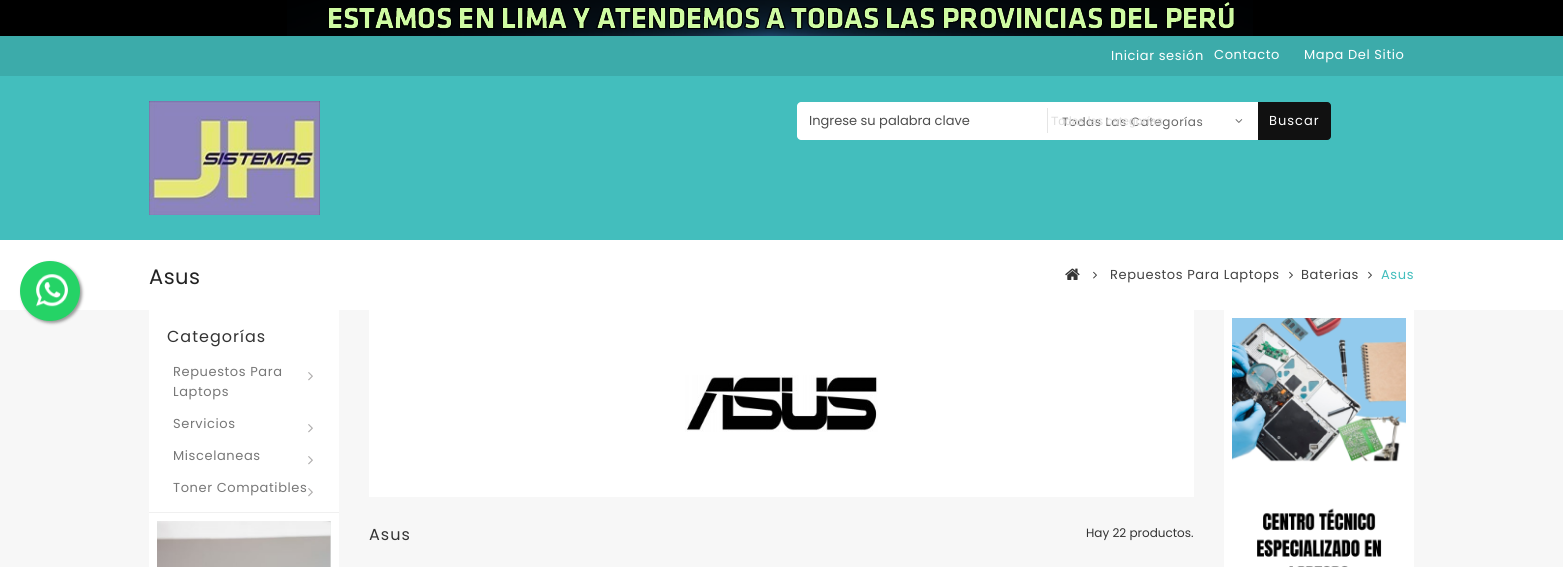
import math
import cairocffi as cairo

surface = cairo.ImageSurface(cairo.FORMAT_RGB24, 1563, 567)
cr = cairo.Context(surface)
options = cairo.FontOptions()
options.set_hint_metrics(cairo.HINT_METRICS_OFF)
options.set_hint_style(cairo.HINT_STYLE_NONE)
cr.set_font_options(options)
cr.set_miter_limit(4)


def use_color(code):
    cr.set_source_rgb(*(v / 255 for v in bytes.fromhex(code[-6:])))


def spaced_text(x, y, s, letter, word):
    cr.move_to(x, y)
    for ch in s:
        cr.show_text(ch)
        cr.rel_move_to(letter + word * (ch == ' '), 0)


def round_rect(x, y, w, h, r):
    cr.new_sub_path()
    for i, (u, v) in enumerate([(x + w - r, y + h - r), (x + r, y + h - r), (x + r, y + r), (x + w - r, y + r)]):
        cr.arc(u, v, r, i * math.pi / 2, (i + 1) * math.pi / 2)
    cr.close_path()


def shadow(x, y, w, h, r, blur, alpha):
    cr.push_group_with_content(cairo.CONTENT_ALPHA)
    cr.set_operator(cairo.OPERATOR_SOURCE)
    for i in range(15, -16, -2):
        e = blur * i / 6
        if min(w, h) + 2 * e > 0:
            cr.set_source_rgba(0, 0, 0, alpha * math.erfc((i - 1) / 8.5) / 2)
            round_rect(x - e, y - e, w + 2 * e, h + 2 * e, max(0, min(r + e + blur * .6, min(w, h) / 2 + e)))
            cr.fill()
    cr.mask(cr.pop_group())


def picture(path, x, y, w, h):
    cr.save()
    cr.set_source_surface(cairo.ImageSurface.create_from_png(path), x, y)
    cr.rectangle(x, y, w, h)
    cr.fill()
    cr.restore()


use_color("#ffffff")
cr.paint()
use_color("#43bebd")
cr.rectangle(0, 76, 1563, 164)
cr.fill()
use_color("#000000")
cr.rectangle(0, 0, 1563, 36)
cr.fill()
picture("img1.png", 287, 0, 966, 36)
use_color("#3cabaa")
cr.rectangle(0, 36, 1563, 40)
cr.fill()
cr.select_font_face("Poppins")
cr.set_font_size(13)
use_color("#ffffff")
spaced_text(1111, 60, "Iniciar sesión", 0.6, 0)
spaced_text(1214, 59, "Contacto", 0.6, 0)
spaced_text(1304, 59, "Mapa Del Sitio", 0.6, 0)
picture("img2.png", 149, 101, 171, 114)
cr.new_path()
cr.move_to(801, 102)
cr.line_to(1047, 102)
cr.line_to(1047, 140)
cr.line_to(801, 140)
cr.curve_to(799, 140, 797, 138, 797, 136)
cr.line_to(797, 106)
cr.curve_to(797, 104, 799, 102, 801, 102)
cr.close_path()
cr.fill()
use_color("#4d4d4d")
cr.move_to(809, 125)
cr.show_text("Ingrese su palabra clave")
use_color("#ffffff")
cr.rectangle(1047, 102, 211, 38)
cr.fill()
use_color("#e5e5e5")
cr.rectangle(1047, 108, 1, 25)
cr.fill()
cr.set_font_size(12)
use_color("#666666")
spaced_text(1062, 126, "Todas Las Categorías", 0.6, 0)
cr.select_font_face("Liberation Sans")
use_color("#dddddd")
cr.move_to(1051, 125)
cr.show_text("Todas las categorías")
picture("img3.png", 1235, 119, 8, 4)
use_color("#111111")
cr.new_path()
cr.move_to(1258.5, 102.5)
cr.line_to(1327, 102.5)
cr.curve_to(1329, 102.5, 1330.5, 104, 1330.5, 106)
cr.line_to(1330.5, 136)
cr.curve_to(1330.5, 138, 1329, 139.5, 1327, 139.5)
cr.line_to(1258.5, 139.5)
cr.close_path()
cr.fill_preserve()
cr.set_line_width(1)
cr.stroke()
cr.select_font_face("Poppins")
cr.set_font_size(13)
use_color("#ffffff")
spaced_text(1269, 125, "Buscar", 1, 0)
use_color("#f7f7f7")
cr.rectangle(0, 310, 1563, 257)
cr.fill()
use_color("#999999")
shadow(22, 263, 60, 60, 30, 1.5, 1)
use_color("#25d366")
cr.arc(50, 291, 30, 0, 2 * math.pi)
cr.fill()
picture("img4.png", 36, 274, 32, 33)
cr.set_font_size(21)
use_color("#232323")
spaced_text(149, 284, "Asus", 0.5, 0)
picture("img5.png", 1065, 268, 15, 12)
picture("img6.png", 1093, 271, 4, 8)
cr.set_font_size(13)
use_color("#424242")
spaced_text(1110, 279, "Repuestos Para Laptops", 0.6, 0)
picture("img6.png", 1289, 271, 4, 8)
spaced_text(1301, 279, "Baterias", 0.6, 0)
picture("img6.png", 1368, 271, 4, 8)
use_color("#43bebd")
spaced_text(1381, 279, "Asus", 0.6, 0)
use_color("#ffffff")
cr.rectangle(149, 310, 190, 202)
cr.fill()
use_color("#f0f0f0")
cr.rectangle(149, 512, 190, 1)
cr.fill()
cr.set_font_size(16)
use_color("#333333")
spaced_text(167, 342, "Categorías", 1, 0)
cr.set_font_size(13)
use_color("#777777")
spaced_text(173, 376, "Repuestos Para", 0.6, 0)
picture("img7.png", 308, 372, 5, 9)
spaced_text(173, 396, "Laptops", 0.6, 0)
spaced_text(173, 428, "Servicios", 0.6, 0)
picture("img7.png", 308, 424, 5, 9)
spaced_text(173, 460, "Miscelaneas", 0.6, 0)
picture("img7.png", 308, 456, 5, 9)
spaced_text(173, 492, "Toner Compatibles", 0.6, 0)
picture("img7.png", 308, 488, 5, 9)
use_color("#ffffff")
cr.rectangle(149, 513, 190, 54)
cr.fill()
picture("img8.png", 157, 521, 174, 46)
cr.rectangle(1224, 310, 190, 257)
cr.fill()
picture("img9.png", 1232, 318, 174, 249)
cr.rectangle(369, 310, 825, 187)
cr.fill()
picture("img10.png", 685, 375, 193, 57)
cr.set_font_size(16)
use_color("#333333")
spaced_text(369, 540, "Asus", 1, 0)
cr.set_font_size(12)
cr.move_to(1086, 537)
cr.show_text("Hay 22 productos.")
surface.write_to_png("result.png")
